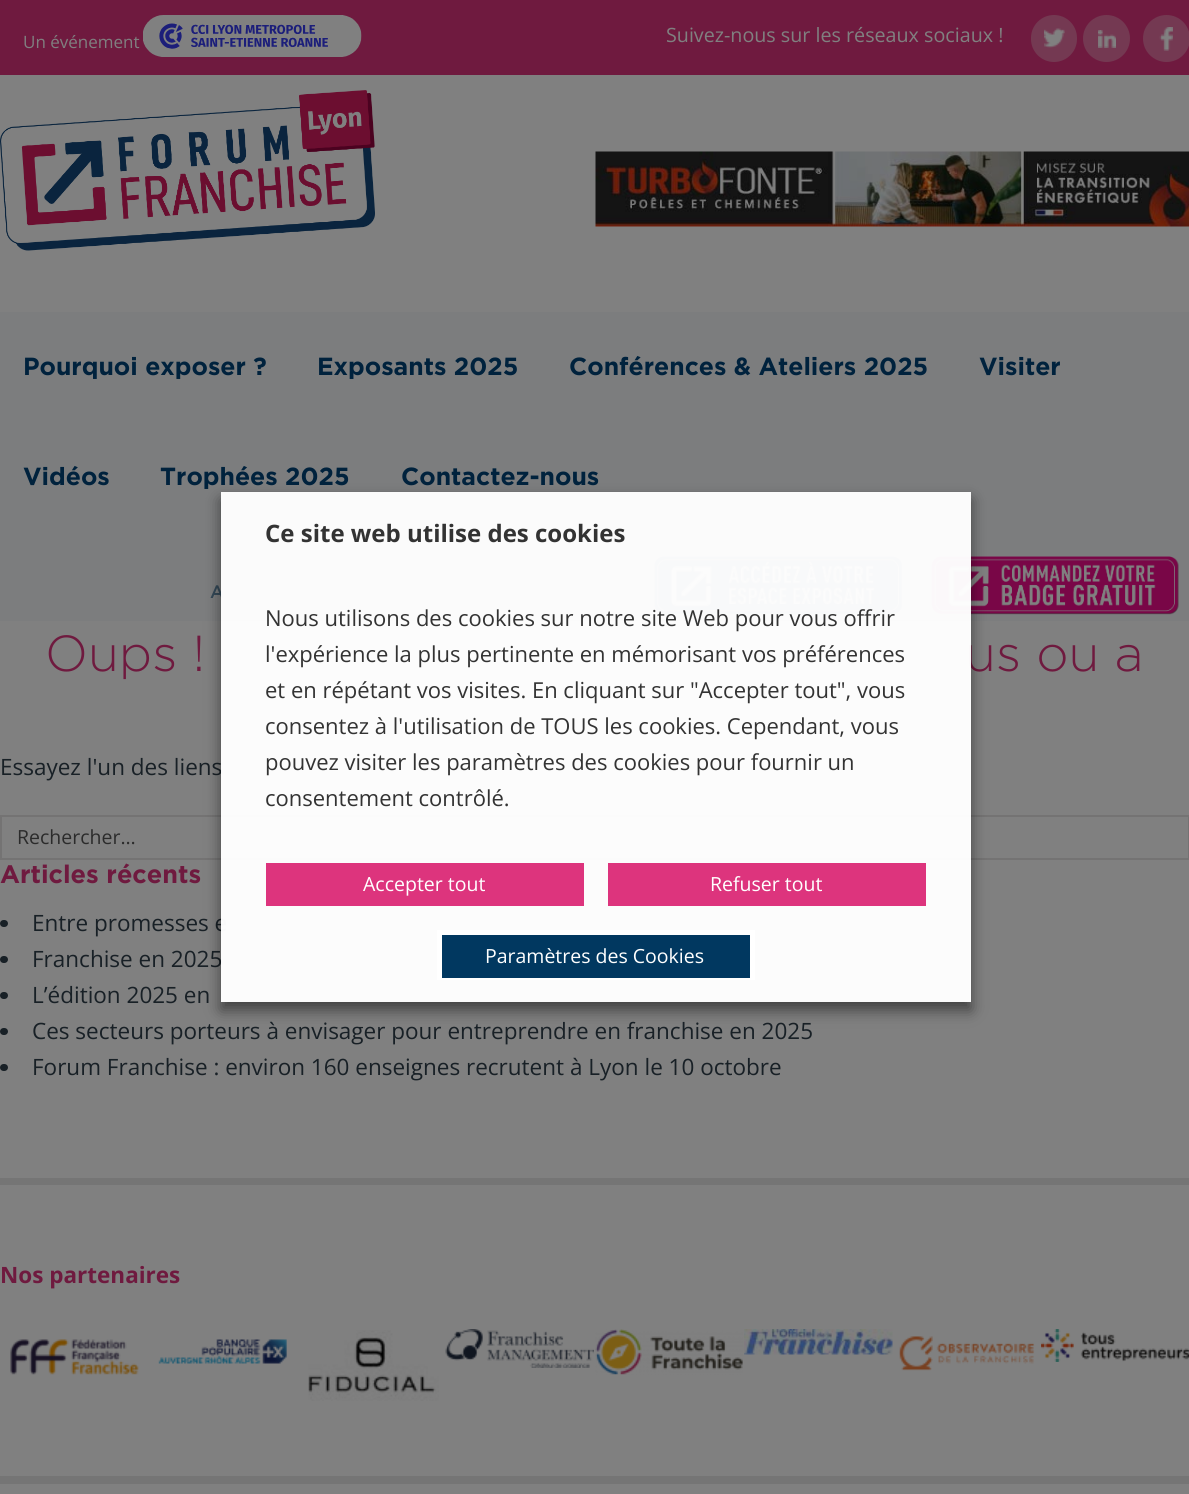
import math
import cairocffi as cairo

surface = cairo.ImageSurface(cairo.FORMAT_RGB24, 1189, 1494)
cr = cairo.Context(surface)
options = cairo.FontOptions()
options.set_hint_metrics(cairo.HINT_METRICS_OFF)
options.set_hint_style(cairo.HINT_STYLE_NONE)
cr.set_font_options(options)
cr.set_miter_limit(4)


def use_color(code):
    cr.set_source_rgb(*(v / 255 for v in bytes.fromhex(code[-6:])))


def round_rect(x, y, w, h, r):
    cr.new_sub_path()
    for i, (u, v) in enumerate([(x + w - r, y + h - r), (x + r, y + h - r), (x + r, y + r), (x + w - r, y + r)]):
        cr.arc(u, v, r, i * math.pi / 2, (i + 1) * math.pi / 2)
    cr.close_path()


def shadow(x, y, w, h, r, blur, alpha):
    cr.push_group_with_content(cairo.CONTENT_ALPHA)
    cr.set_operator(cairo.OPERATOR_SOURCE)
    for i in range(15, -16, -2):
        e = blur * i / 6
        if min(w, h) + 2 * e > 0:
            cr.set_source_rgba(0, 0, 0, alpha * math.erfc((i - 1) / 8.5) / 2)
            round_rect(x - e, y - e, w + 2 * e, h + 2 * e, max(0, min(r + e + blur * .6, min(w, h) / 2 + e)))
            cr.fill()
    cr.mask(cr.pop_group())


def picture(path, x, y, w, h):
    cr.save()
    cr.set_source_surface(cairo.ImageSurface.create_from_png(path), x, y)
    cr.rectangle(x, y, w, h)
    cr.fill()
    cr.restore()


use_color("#808080")
cr.paint()
use_color("#6f1a3f")
cr.rectangle(0, 0, 1189, 75)
cr.fill()
cr.select_font_face("Open Sans")
cr.set_font_size(17)
use_color("#808080")
cr.move_to(23, 48)
cr.show_text("Un événement")
picture("img1.png", 143, 15, 219, 42)
cr.set_font_size(19.7)
cr.move_to(666, 42)
cr.show_text("Suivez-nous sur les réseaux sociaux !")
use_color("#743952")
round_rect(1031, 15, 46, 47, 23)
cr.fill()
picture("img2.png", 1044, 28, 21, 20)
cr.arc(1106.5, 38.5, 23.5, 0, 2 * math.pi)
cr.fill()
picture("img3.png", 1098, 30, 18, 18)
cr.arc(1166.5, 38.5, 23.5, 0, 2 * math.pi)
cr.fill()
picture("img4.png", 1159, 27, 14, 24)
picture("img5.png", 0, 90, 375, 161)
picture("img6.png", 595, 151, 594, 76)
use_color("#7c7d7e")
cr.rectangle(0, 312, 1189, 309)
cr.fill()
cr.select_font_face("Gotham", cairo.FONT_SLANT_NORMAL, cairo.FONT_WEIGHT_BOLD)
cr.set_font_size(24.75)
use_color("#00223d")
cr.move_to(23, 375)
cr.show_text("Pourquoi exposer ?")
cr.move_to(317, 375)
cr.show_text("Exposants 2025")
cr.move_to(569, 375)
cr.show_text("Conférences & Ateliers 2025")
cr.move_to(979, 375)
cr.show_text("Visiter")
cr.move_to(23, 485)
cr.show_text("Vidéos")
cr.move_to(160, 485)
cr.show_text("Trophées 2025")
cr.move_to(401, 485)
cr.show_text("Contactez-nous")
cr.select_font_face("Gotham Medium")
cr.set_font_size(18)
use_color("#344857")
cr.move_to(210, 598)
cr.show_text("A")
picture("img7.png", 653, 556, 250, 59)
picture("img8.png", 931, 556, 248, 59)
cr.select_font_face("Gotham Light")
cr.set_font_size(50.5)
use_color("#6f1a3f")
cr.move_to(45, 671)
cr.show_text("Oups !")
cr.move_to(965, 671)
cr.show_text("us ou a")
cr.select_font_face("Open Sans")
cr.set_font_size(22.5)
use_color("#182026")
cr.move_to(0, 775)
cr.show_text("Essayez l'un des liens")
cr.rectangle(1, 816, 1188, 43)
use_color("#747373")
cr.stroke()
cr.set_font_size(19.5)
use_color("#2b2b2b")
cr.move_to(17, 844)
cr.show_text("Rechercher…")
cr.select_font_face("Gotham", cairo.FONT_SLANT_NORMAL, cairo.FONT_WEIGHT_BOLD)
cr.set_font_size(25.25)
use_color("#6f1a3f")
cr.move_to(0, 883)
cr.show_text("Articles récents")
use_color("#182026")
round_rect(0, 920, 8, 7, 3.5)
cr.fill()
cr.select_font_face("Open Sans")
cr.set_font_size(22.5)
cr.move_to(32, 931)
cr.show_text("Entre promesses e")
round_rect(0, 956, 8, 7, 3.5)
cr.fill()
cr.move_to(32, 967)
cr.show_text("Franchise en 2025")
round_rect(0, 992, 8, 7, 3.5)
cr.fill()
cr.move_to(32, 1003)
cr.show_text("L’édition 2025 en")
round_rect(0, 1028, 8, 7, 3.5)
cr.fill()
cr.move_to(32, 1039)
cr.show_text("Ces secteurs porteurs à envisager pour entreprendre en franchise en 2025")
round_rect(0, 1064, 8, 7, 3.5)
cr.fill()
cr.move_to(32, 1075)
cr.show_text("Forum Franchise : environ 160 enseignes recrutent à Lyon le 10 octobre")
use_color("#757575")
cr.rectangle(0, 1178, 1189, 7)
cr.fill()
cr.rectangle(0, 1476, 1189, 8)
cr.fill()
cr.select_font_face("Open Sans", cairo.FONT_SLANT_NORMAL, cairo.FONT_WEIGHT_BOLD)
use_color("#6f1a3f")
cr.move_to(0, 1283)
cr.show_text("Nos partenaires")
picture("img9.png", 10, 1339, 129, 36)
picture("img10.png", 158, 1339, 129, 25)
picture("img11.png", 308, 1330, 131, 71)
picture("img12.png", 445, 1329, 149, 39)
picture("img13.png", 595, 1329, 148, 46)
picture("img14.png", 744, 1329, 149, 26)
picture("img15.png", 899, 1336, 136, 35)
picture("img16.png", 1041, 1329, 148, 33)
cr.save()
cr.set_fill_rule(cairo.FILL_RULE_EVEN_ODD)
cr.new_path()
cr.move_to(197, 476)
cr.line_to(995, 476)
cr.line_to(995, 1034)
cr.line_to(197, 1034)
cr.close_path()
cr.move_to(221, 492)
cr.line_to(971, 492)
cr.line_to(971, 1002)
cr.line_to(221, 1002)
cr.close_path()
cr.clip()
use_color("#000000")
shadow(221, 500, 750, 510, 0, 7.5, 0.5)
cr.restore()
cr.set_source_rgba(1, 1, 1, 0.97)
cr.rectangle(221, 492, 750, 510)
cr.fill()
cr.set_font_size(24)
use_color("#333333")
cr.move_to(265, 542)
cr.show_text("Ce site web utilise des cookies")
cr.select_font_face("Open Sans")
cr.set_font_size(22)
cr.move_to(265, 626)
cr.show_text("Nous utilisons des cookies sur notre site Web pour vous offrir")
cr.move_to(265, 662)
cr.show_text("l'expérience la plus pertinente en mémorisant vos préférences")
cr.move_to(265, 698)
cr.show_text("et en répétant vos visites. En cliquant sur \"Accepter tout\", vous")
cr.move_to(265, 734)
cr.show_text("consentez à l'utilisation de TOUS les cookies. Cependant, vous")
cr.move_to(265, 770)
cr.show_text("pouvez visiter les paramètres des cookies pour fournir un")
cr.move_to(265, 806)
cr.show_text("consentement contrôlé.")
use_color("#dd347d")
cr.rectangle(266, 863, 318, 43)
cr.fill()
cr.set_font_size(19.5)
use_color("#ffffff")
cr.move_to(363, 891)
cr.show_text("Accepter tout")
use_color("#dd347d")
cr.rectangle(608, 863, 318, 43)
cr.fill()
use_color("#ffffff")
cr.move_to(710, 891)
cr.show_text("Refuser tout")
use_color("#013860")
cr.rectangle(442, 935, 308, 43)
cr.fill()
use_color("#ffffff")
cr.rectangle(437, 930, 318, 5)
cr.fill()
cr.rectangle(750, 930, 5, 50)
cr.fill()
cr.rectangle(437, 978, 318, 2)
cr.fill()
cr.rectangle(437, 930, 5, 50)
cr.fill()
cr.move_to(485, 963)
cr.show_text("Paramètres des Cookies")
surface.write_to_png("result.png")
